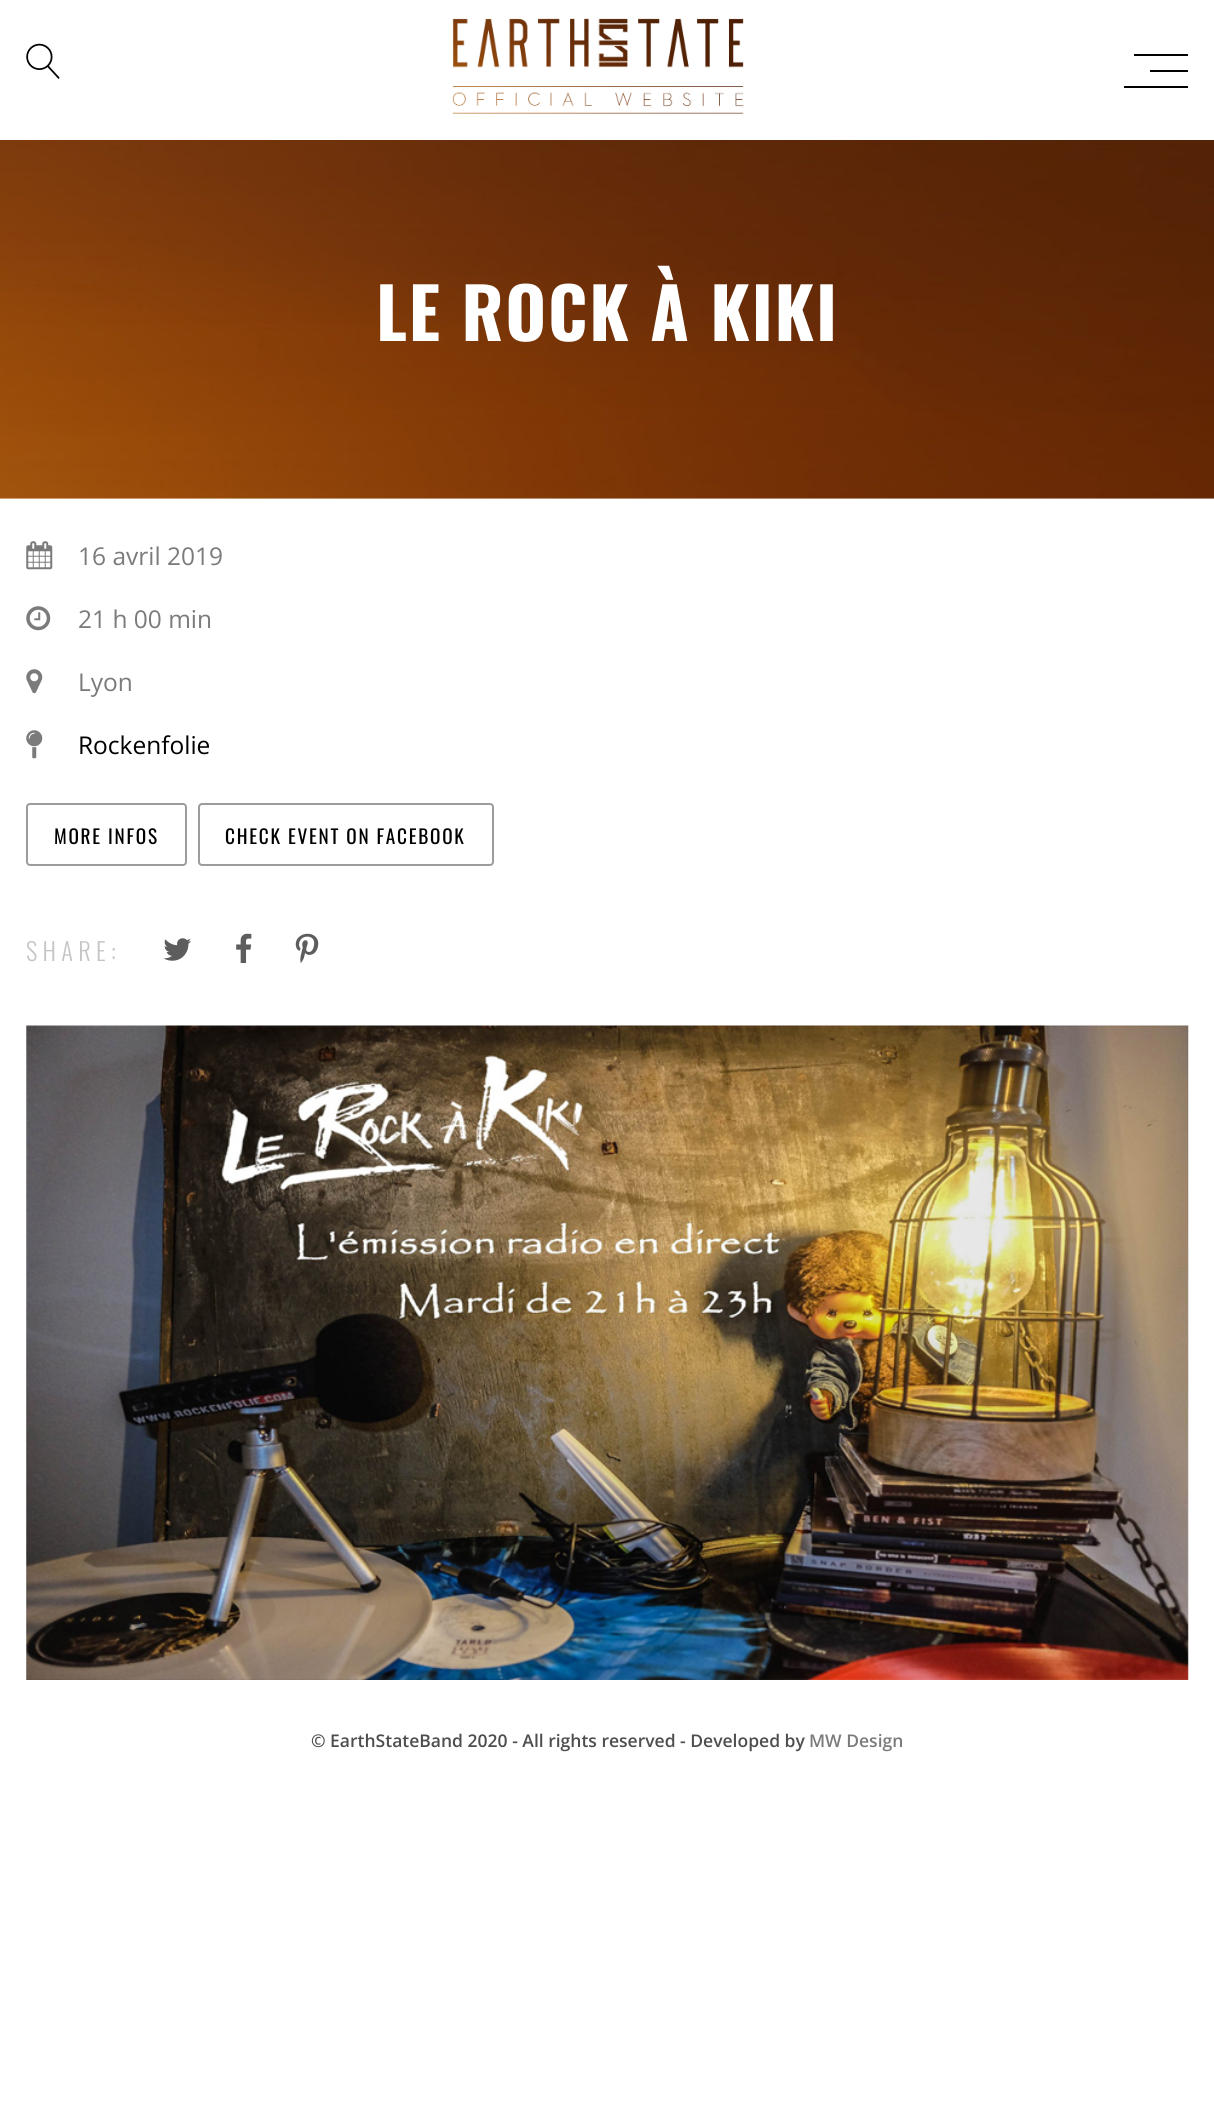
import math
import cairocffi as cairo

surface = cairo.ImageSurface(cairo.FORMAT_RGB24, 1214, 2115)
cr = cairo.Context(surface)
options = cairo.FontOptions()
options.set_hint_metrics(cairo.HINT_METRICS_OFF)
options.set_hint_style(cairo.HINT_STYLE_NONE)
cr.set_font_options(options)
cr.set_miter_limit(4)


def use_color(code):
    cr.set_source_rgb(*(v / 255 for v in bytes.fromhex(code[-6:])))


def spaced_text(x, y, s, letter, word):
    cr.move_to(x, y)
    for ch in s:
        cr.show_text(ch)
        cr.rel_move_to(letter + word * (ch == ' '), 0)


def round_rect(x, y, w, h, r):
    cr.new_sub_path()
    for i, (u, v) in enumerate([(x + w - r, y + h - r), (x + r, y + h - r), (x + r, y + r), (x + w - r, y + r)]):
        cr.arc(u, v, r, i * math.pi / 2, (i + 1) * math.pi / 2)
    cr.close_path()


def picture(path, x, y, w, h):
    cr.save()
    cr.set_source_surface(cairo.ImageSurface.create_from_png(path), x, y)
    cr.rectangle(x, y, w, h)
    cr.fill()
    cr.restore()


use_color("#ffffff")
cr.paint()
picture("img1.png", 26, 43, 34, 36)
picture("img2.png", 452, 18, 292, 96)
use_color("#000000")
cr.rectangle(1134, 54, 54, 2)
cr.fill()
cr.rectangle(1150, 70, 38, 2)
cr.fill()
cr.rectangle(1124, 86, 64, 2)
cr.fill()
picture("img3.png", 0, 140, 1214, 359)
cr.select_font_face("Oswald", cairo.FONT_SLANT_NORMAL, cairo.FONT_WEIGHT_BOLD)
cr.set_font_size(70)
use_color("#ffffff")
spaced_text(376, 341, "LE ROCK À KIKI", 1.75, 0)
picture("img4.png", 26, 541, 27, 29)
cr.select_font_face("Open Sans")
cr.set_font_size(24.5)
use_color("#7b7b7b")
cr.move_to(78, 565)
cr.show_text("16 avril 2019")
picture("img5.png", 26, 606, 25, 25)
cr.move_to(78, 628)
cr.show_text("21 h 00 min")
picture("img6.png", 26, 669, 17, 25)
cr.move_to(78, 691)
cr.show_text("Lyon")
picture("img7.png", 26, 730, 17, 29)
use_color("#000000")
cr.move_to(78, 754)
cr.show_text("Rockenfolie")
round_rect(27, 804, 159, 61, 3)
use_color("#9c9c9c")
cr.stroke()
cr.select_font_face("Oswald")
cr.set_font_size(19.25)
use_color("#000000")
spaced_text(54, 844, "MORE INFOS", 1.75, 0)
round_rect(199, 804, 294, 61, 3)
use_color("#9c9c9c")
cr.stroke()
use_color("#000000")
spaced_text(225, 844, "CHECK EVENT ON FACEBOOK", 1.75, 0)
cr.select_font_face("Oswald Light")
cr.set_font_size(24.5)
use_color("#c5c5c5")
spaced_text(26, 961, "SHARE:", 5.25, 0)
picture("img8.png", 163, 938, 28, 23)
picture("img9.png", 236, 933, 16, 30)
picture("img10.png", 295, 933, 24, 30)
picture("img11.png", 26, 1025, 1163, 655)
cr.select_font_face("Open Sans SemiBold")
cr.set_font_size(17.5)
use_color("#4e4e4e")
cr.move_to(311, 1747)
cr.show_text("© EarthStateBand 2020 - All rights reserved - Developed by")
use_color("#7b7b7b")
cr.move_to(809, 1747)
cr.show_text("MW Design")
surface.write_to_png("result.png")
